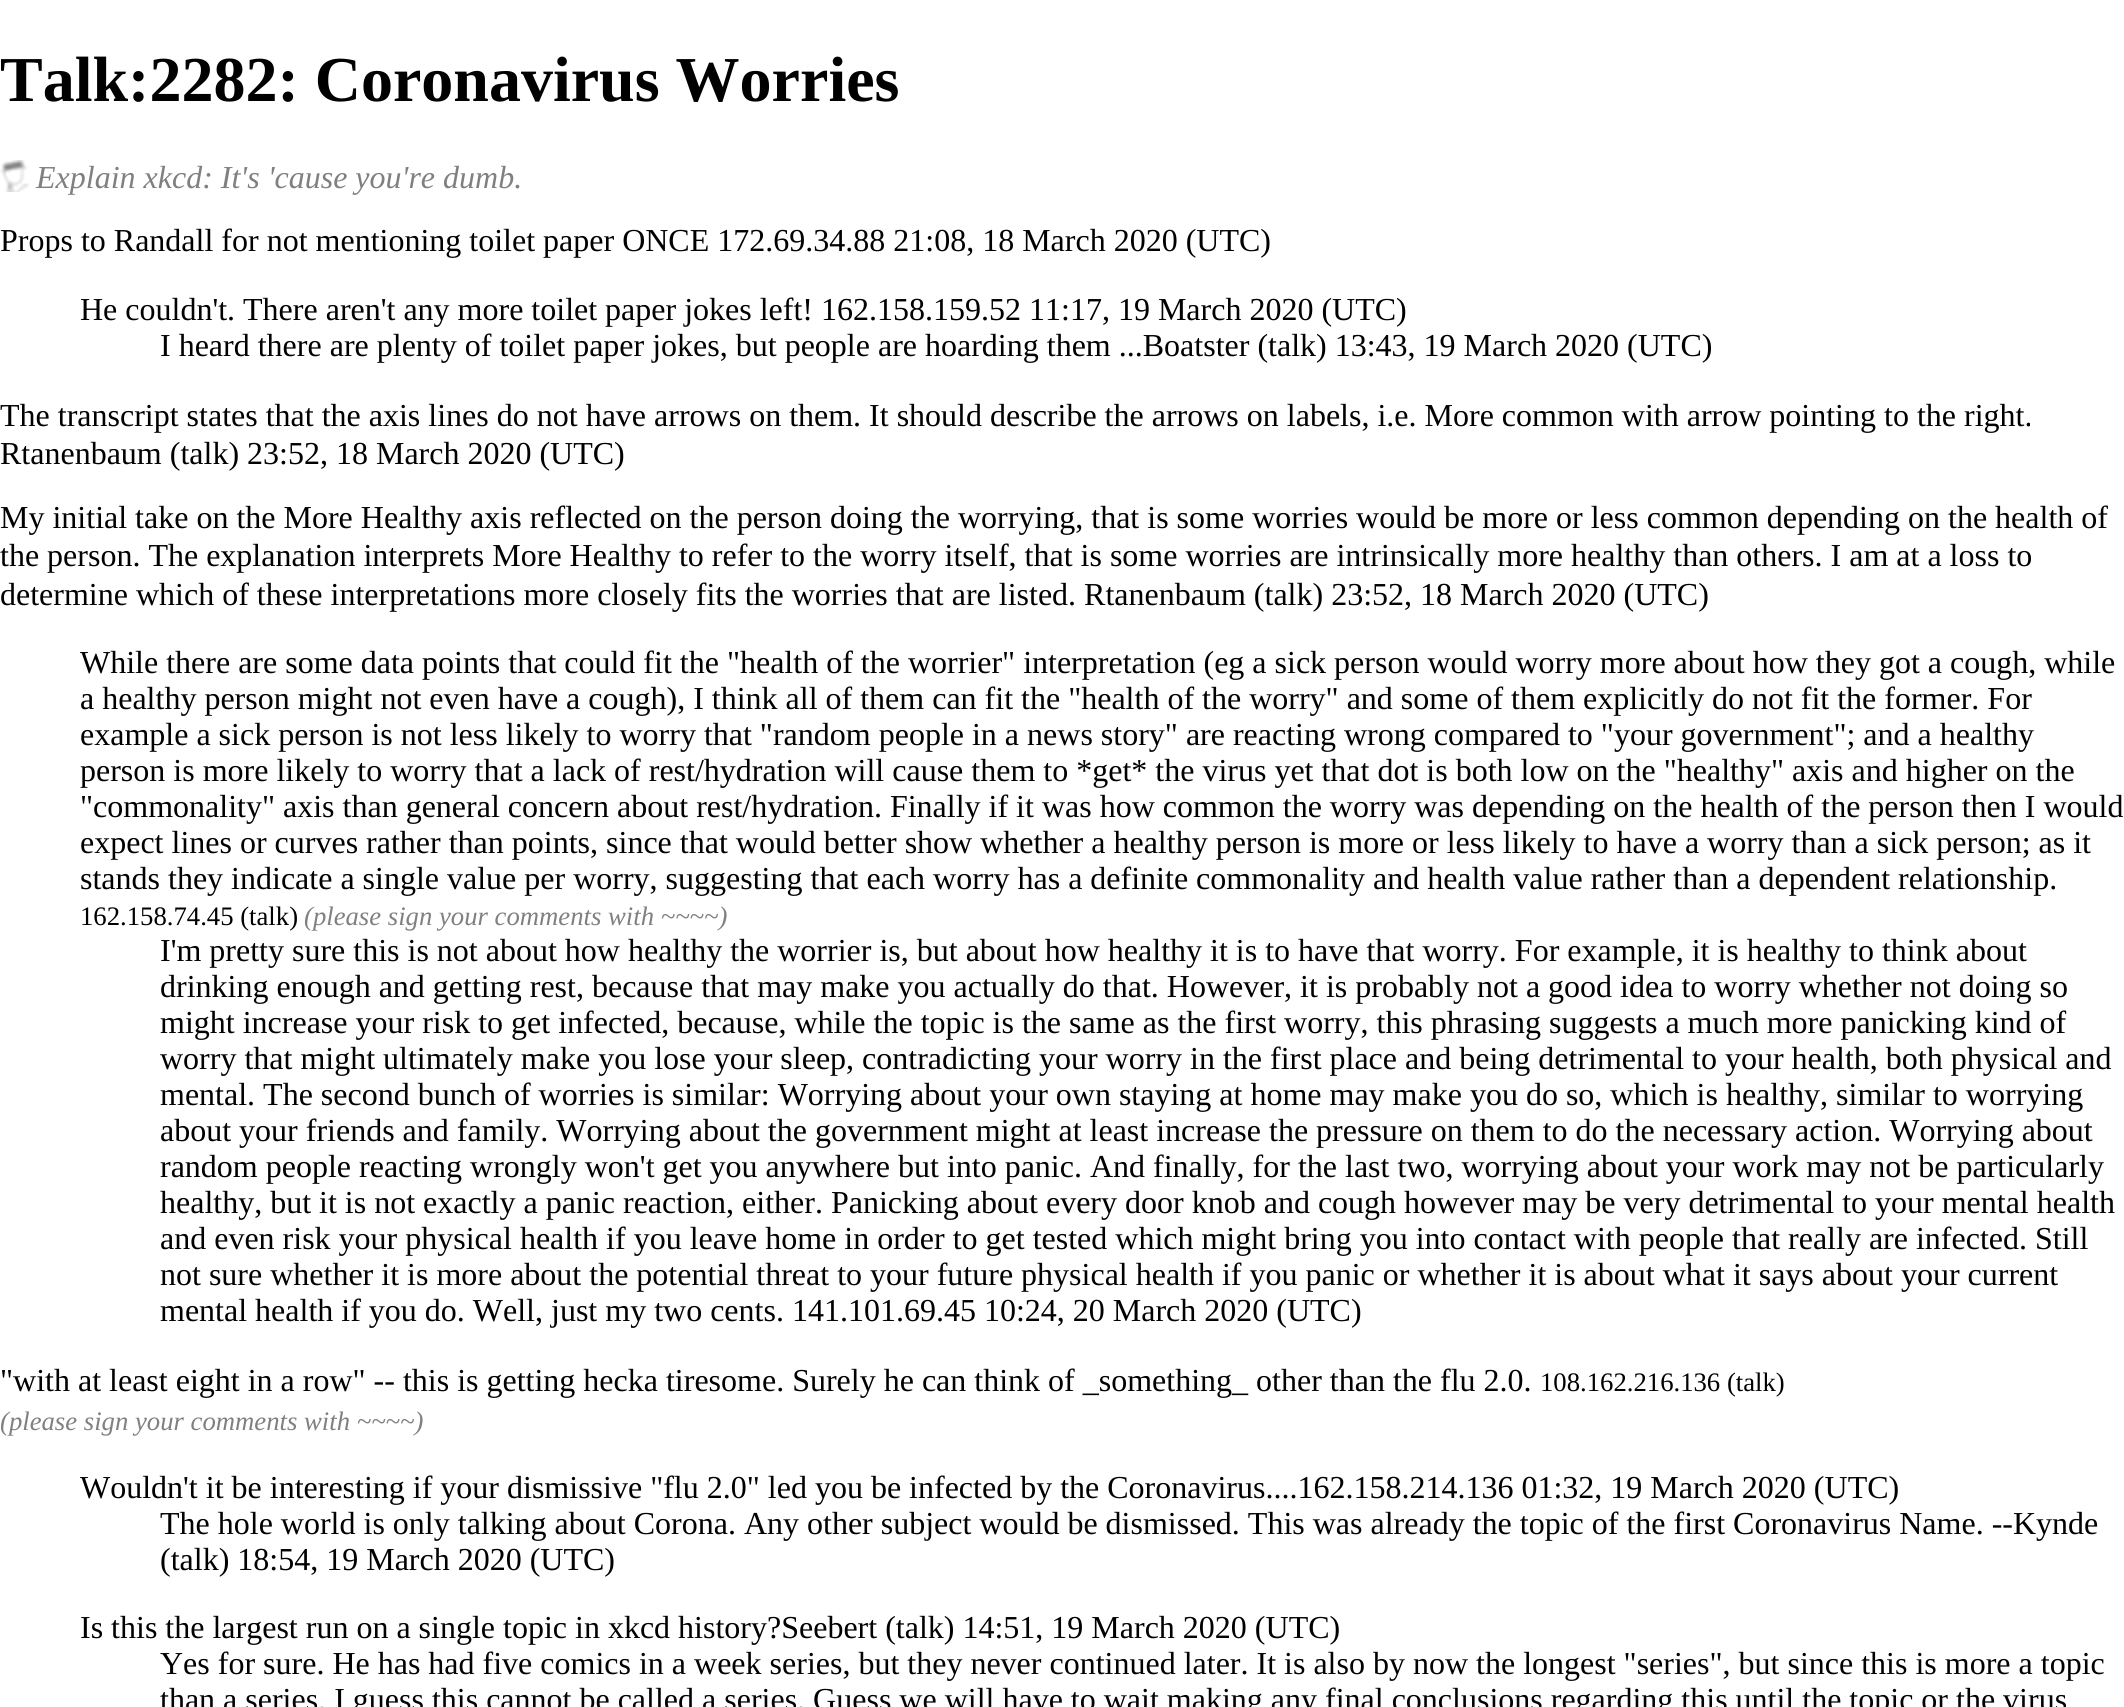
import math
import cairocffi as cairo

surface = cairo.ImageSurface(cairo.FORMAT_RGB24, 2124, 1707)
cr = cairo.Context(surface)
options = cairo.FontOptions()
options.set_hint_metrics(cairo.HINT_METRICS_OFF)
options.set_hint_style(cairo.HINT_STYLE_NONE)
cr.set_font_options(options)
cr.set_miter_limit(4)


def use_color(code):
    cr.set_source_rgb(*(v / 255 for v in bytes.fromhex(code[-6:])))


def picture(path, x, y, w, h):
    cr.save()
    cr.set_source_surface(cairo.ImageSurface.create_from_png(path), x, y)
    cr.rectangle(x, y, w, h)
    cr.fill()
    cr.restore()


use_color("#ffffff")
cr.paint()
cr.select_font_face("Liberation Serif", cairo.FONT_SLANT_NORMAL, cairo.FONT_WEIGHT_BOLD)
cr.set_font_size(64)
use_color("#000000")
cr.move_to(0, 101)
cr.show_text("Talk:2282: Coronavirus Worries")
picture("img1.png", 0, 160, 30, 32)
cr.select_font_face("Liberation Serif", cairo.FONT_SLANT_ITALIC)
cr.set_font_size(32)
use_color("#808080")
cr.move_to(36, 188)
cr.show_text("Explain xkcd: It's 'cause you're dumb.")
cr.select_font_face("Liberation Serif")
use_color("#000000")
cr.move_to(0, 251)
cr.show_text("Props to Randall for not mentioning toilet paper ONCE 172.69.34.88 21:08, 18 March 2020 (UTC)")
cr.move_to(80, 320)
cr.show_text("He couldn't. There aren't any more toilet paper jokes left! 162.158.159.52 11:17, 19 March 2020 (UTC)")
cr.move_to(160, 356)
cr.show_text("I heard there are plenty of toilet paper jokes, but people are hoarding them ...Boatster (talk) 13:43, 19 March 2020 (UTC)")
cr.move_to(0, 426)
cr.show_text("The transcript states that the axis lines do not have arrows on them. It should describe the arrows on labels, i.e. More common with arrow pointing to the right.")
cr.move_to(0, 464)
cr.show_text("Rtanenbaum (talk) 23:52, 18 March 2020 (UTC)")
cr.move_to(0, 528)
cr.show_text("My initial take on the More Healthy axis reflected on the person doing the worrying, that is some worries would be more or less common depending on the health of")
cr.move_to(0, 566)
cr.show_text("the person. The explanation interprets More Healthy to refer to the worry itself, that is some worries are intrinsically more healthy than others. I am at a loss to")
cr.move_to(0, 605)
cr.show_text("determine which of these interpretations more closely fits the worries that are listed. Rtanenbaum (talk) 23:52, 18 March 2020 (UTC)")
cr.move_to(80, 673)
cr.show_text("While there are some data points that could fit the \"health of the worrier\" interpretation (eg a sick person would worry more about how they got a cough, while")
cr.move_to(80, 709)
cr.show_text("a healthy person might not even have a cough), I think all of them can fit the \"health of the worry\" and some of them explicitly do not fit the former. For")
cr.move_to(80, 745)
cr.show_text("example a sick person is not less likely to worry that \"random people in a news story\" are reacting wrong compared to \"your government\"; and a healthy")
cr.move_to(80, 781)
cr.show_text("person is more likely to worry that a lack of rest/hydration will cause them to *get* the virus yet that dot is both low on the \"healthy\" axis and higher on the")
cr.move_to(80, 817)
cr.show_text("\"commonality\" axis than general concern about rest/hydration. Finally if it was how common the worry was depending on the health of the person then I would")
cr.move_to(80, 853)
cr.show_text("expect lines or curves rather than points, since that would better show whether a healthy person is more or less likely to have a worry than a sick person; as it")
cr.move_to(80, 889)
cr.show_text("stands they indicate a single value per worry, suggesting that each worry has a definite commonality and health value rather than a dependent relationship.")
cr.set_font_size(26.7)
cr.move_to(80, 925)
cr.show_text("162.158.74.45 (talk)")
cr.select_font_face("Liberation Serif", cairo.FONT_SLANT_ITALIC)
use_color("#808080")
cr.move_to(304, 925)
cr.show_text("(please sign your comments with ~~~~)")
cr.select_font_face("Liberation Serif")
cr.set_font_size(32)
use_color("#000000")
cr.move_to(160, 961)
cr.show_text("I'm pretty sure this is not about how healthy the worrier is, but about how healthy it is to have that worry. For example, it is healthy to think about")
cr.move_to(160, 997)
cr.show_text("drinking enough and getting rest, because that may make you actually do that. However, it is probably not a good idea to worry whether not doing so")
cr.move_to(160, 1033)
cr.show_text("might increase your risk to get infected, because, while the topic is the same as the first worry, this phrasing suggests a much more panicking kind of")
cr.move_to(160, 1069)
cr.show_text("worry that might ultimately make you lose your sleep, contradicting your worry in the first place and being detrimental to your health, both physical and")
cr.move_to(160, 1105)
cr.show_text("mental. The second bunch of worries is similar: Worrying about your own staying at home may make you do so, which is healthy, similar to worrying")
cr.move_to(160, 1141)
cr.show_text("about your friends and family. Worrying about the government might at least increase the pressure on them to do the necessary action. Worrying about")
cr.move_to(160, 1177)
cr.show_text("random people reacting wrongly won't get you anywhere but into panic. And finally, for the last two, worrying about your work may not be particularly")
cr.move_to(160, 1213)
cr.show_text("healthy, but it is not exactly a panic reaction, either. Panicking about every door knob and cough however may be very detrimental to your mental health")
cr.move_to(160, 1249)
cr.show_text("and even risk your physical health if you leave home in order to get tested which might bring you into contact with people that really are infected. Still")
cr.move_to(160, 1285)
cr.show_text("not sure whether it is more about the potential threat to your future physical health if you panic or whether it is about what it says about your current")
cr.move_to(160, 1321)
cr.show_text("mental health if you do. Well, just my two cents. 141.101.69.45 10:24, 20 March 2020 (UTC)")
cr.move_to(0, 1391)
cr.show_text("\"with at least eight in a row\" -- this is getting hecka tiresome. Surely he can think of _something_ other than the flu 2.0.")
cr.set_font_size(26.7)
cr.move_to(1540, 1391)
cr.show_text("108.162.216.136 (talk)")
cr.select_font_face("Liberation Serif", cairo.FONT_SLANT_ITALIC)
use_color("#808080")
cr.move_to(0, 1430)
cr.show_text("(please sign your comments with ~~~~)")
cr.select_font_face("Liberation Serif")
cr.set_font_size(32)
use_color("#000000")
cr.move_to(80, 1498)
cr.show_text("Wouldn't it be interesting if your dismissive \"flu 2.0\" led you be infected by the Coronavirus....162.158.214.136 01:32, 19 March 2020 (UTC)")
cr.move_to(160, 1534)
cr.show_text("The hole world is only talking about Corona. Any other subject would be dismissed. This was already the topic of the first Coronavirus Name. --Kynde")
cr.move_to(160, 1570)
cr.show_text("(talk) 18:54, 19 March 2020 (UTC)")
cr.move_to(80, 1638)
cr.show_text("Is this the largest run on a single topic in xkcd history?Seebert (talk) 14:51, 19 March 2020 (UTC)")
cr.move_to(160, 1674)
cr.show_text("Yes for sure. He has had five comics in a week series, but they never continued later. It is also by now the longest \"series\", but since this is more a topic")
cr.move_to(160, 1710)
cr.show_text("than a series, I guess this cannot be called a series. Guess we will have to wait making any final conclusions regarding this until the topic or the virus")
surface.write_to_png("result.png")
